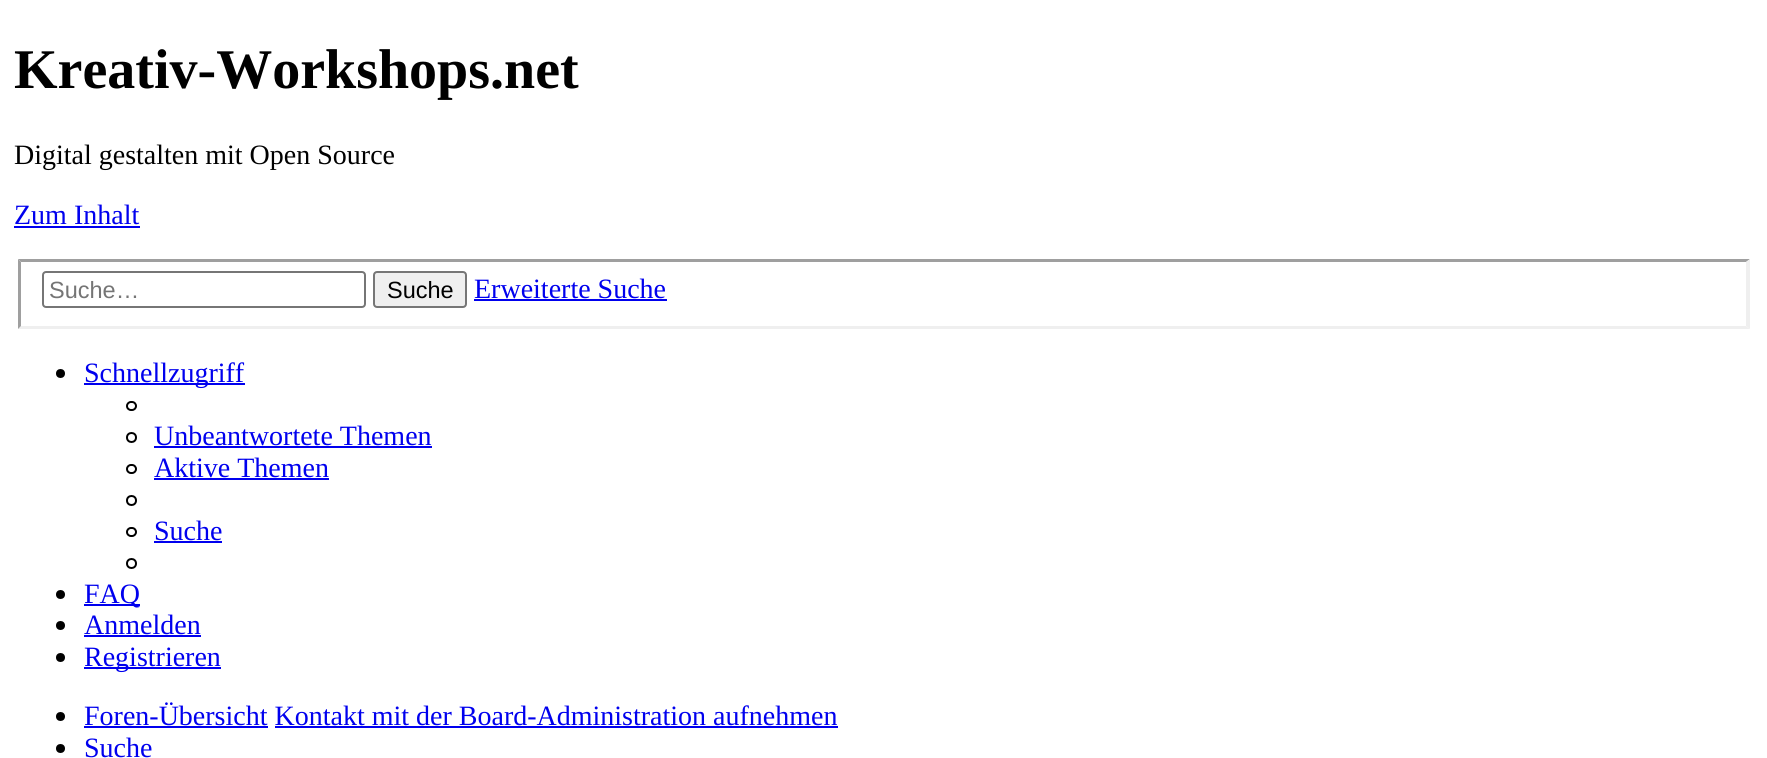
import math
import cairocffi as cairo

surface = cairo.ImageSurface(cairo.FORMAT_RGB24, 1767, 758)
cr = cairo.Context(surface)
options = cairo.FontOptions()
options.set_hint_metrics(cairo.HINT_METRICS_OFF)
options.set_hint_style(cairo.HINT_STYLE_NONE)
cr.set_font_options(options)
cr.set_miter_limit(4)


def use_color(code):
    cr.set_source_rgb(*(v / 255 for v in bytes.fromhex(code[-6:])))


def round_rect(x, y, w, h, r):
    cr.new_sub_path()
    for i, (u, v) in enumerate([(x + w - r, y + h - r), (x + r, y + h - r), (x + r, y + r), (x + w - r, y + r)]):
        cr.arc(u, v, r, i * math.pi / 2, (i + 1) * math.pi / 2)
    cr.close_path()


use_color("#ffffff")
cr.paint()
cr.select_font_face("Liberation Serif", cairo.FONT_SLANT_NORMAL, cairo.FONT_WEIGHT_BOLD)
cr.set_font_size(56)
use_color("#000000")
cr.move_to(14, 88)
cr.show_text("Kreativ-Workshops.net")
cr.select_font_face("Liberation Serif")
cr.set_font_size(28)
cr.move_to(14, 164)
cr.show_text("Digital gestalten mit Open Source")
use_color("#0000ee")
cr.move_to(14, 224)
cr.show_text("Zum Inhalt")
cr.rectangle(14, 226, 126, 2)
cr.fill()
use_color("#9f9f9f")
cr.new_path()
cr.move_to(18, 259)
cr.line_to(1750, 259)
cr.line_to(1746, 262)
cr.line_to(21, 262)
cr.close_path()
cr.fill()
use_color("#efefef")
cr.new_path()
cr.move_to(1750, 259)
cr.line_to(1750, 329)
cr.line_to(1746, 326)
cr.line_to(1746, 262)
cr.close_path()
cr.fill()
cr.new_path()
cr.move_to(1750, 329)
cr.line_to(18, 329)
cr.line_to(21, 326)
cr.line_to(1746, 326)
cr.close_path()
cr.fill()
use_color("#9f9f9f")
cr.new_path()
cr.move_to(18, 329)
cr.line_to(18, 259)
cr.line_to(21, 262)
cr.line_to(21, 326)
cr.close_path()
cr.fill()
round_rect(43, 272, 322, 35, 3)
use_color("#767676")
cr.stroke()
cr.select_font_face("Liberation Sans")
cr.set_font_size(23.5)
use_color("#757575")
cr.move_to(49, 298)
cr.show_text("Suche…")
use_color("#efefef")
round_rect(374, 272, 92, 35, 3)
cr.fill_preserve()
use_color("#767676")
cr.stroke()
use_color("#000000")
cr.move_to(387, 298)
cr.show_text("Suche")
cr.select_font_face("Liberation Serif")
cr.set_font_size(28)
use_color("#0000ee")
cr.move_to(474, 298)
cr.show_text("Erweiterte Suche")
cr.rectangle(474, 299, 193, 2)
cr.fill()
use_color("#000000")
cr.arc(60.5, 373.5, 4.5, 0, 2 * math.pi)
cr.fill()
use_color("#0000ee")
cr.rectangle(84, 383, 161, 2)
cr.fill()
cr.move_to(84, 382)
cr.show_text("Schnellzugriff")
round_rect(127, 402, 9, 8, 4)
use_color("#000000")
cr.stroke()
cr.arc(131.5, 437.5, 4.5, 0, 2 * math.pi)
cr.stroke()
use_color("#0000ee")
cr.move_to(154, 445)
cr.show_text("Unbeantwortete Themen")
cr.rectangle(154, 446, 278, 2)
cr.fill()
round_rect(127, 465, 9, 8, 4)
use_color("#000000")
cr.stroke()
use_color("#0000ee")
cr.move_to(154, 477)
cr.show_text("Aktive Themen")
cr.rectangle(154, 478, 175, 2)
cr.fill()
cr.arc(131.5, 500.5, 4.5, 0, 2 * math.pi)
use_color("#000000")
cr.stroke()
round_rect(127, 528, 9, 8, 4)
cr.stroke()
use_color("#0000ee")
cr.move_to(154, 540)
cr.show_text("Suche")
cr.rectangle(154, 541, 68, 2)
cr.fill()
cr.arc(131.5, 563.5, 4.5, 0, 2 * math.pi)
use_color("#000000")
cr.stroke()
cr.arc(60.5, 594.5, 4.5, 0, 2 * math.pi)
cr.fill()
use_color("#0000ee")
cr.rectangle(84, 604, 56, 2)
cr.fill()
cr.move_to(84, 603)
cr.show_text("FAQ")
use_color("#000000")
cr.new_path()
cr.arc(60.5, 625.5, 4.5, 0, 2 * math.pi)
cr.fill()
use_color("#0000ee")
cr.move_to(84, 634)
cr.show_text("Anmelden")
cr.rectangle(84, 635, 117, 2)
cr.fill()
use_color("#000000")
cr.arc(60.5, 657.5, 4.5, 0, 2 * math.pi)
cr.fill()
use_color("#0000ee")
cr.rectangle(84, 667, 137, 2)
cr.fill()
cr.move_to(84, 666)
cr.show_text("Registrieren")
use_color("#000000")
cr.new_path()
cr.arc(60.5, 716.5, 4.5, 0, 2 * math.pi)
cr.fill()
use_color("#0000ee")
cr.move_to(84, 725)
cr.show_text("Foren-Übersicht Kontakt mit der Board-Administration aufnehmen")
cr.rectangle(84, 726, 184, 2)
cr.fill()
cr.rectangle(275, 726, 563, 2)
cr.fill()
use_color("#000000")
cr.arc(60.5, 748.5, 4.5, 0, 2 * math.pi)
cr.fill()
use_color("#0000ee")
cr.move_to(84, 757)
cr.show_text("Suche")
surface.write_to_png("result.png")
